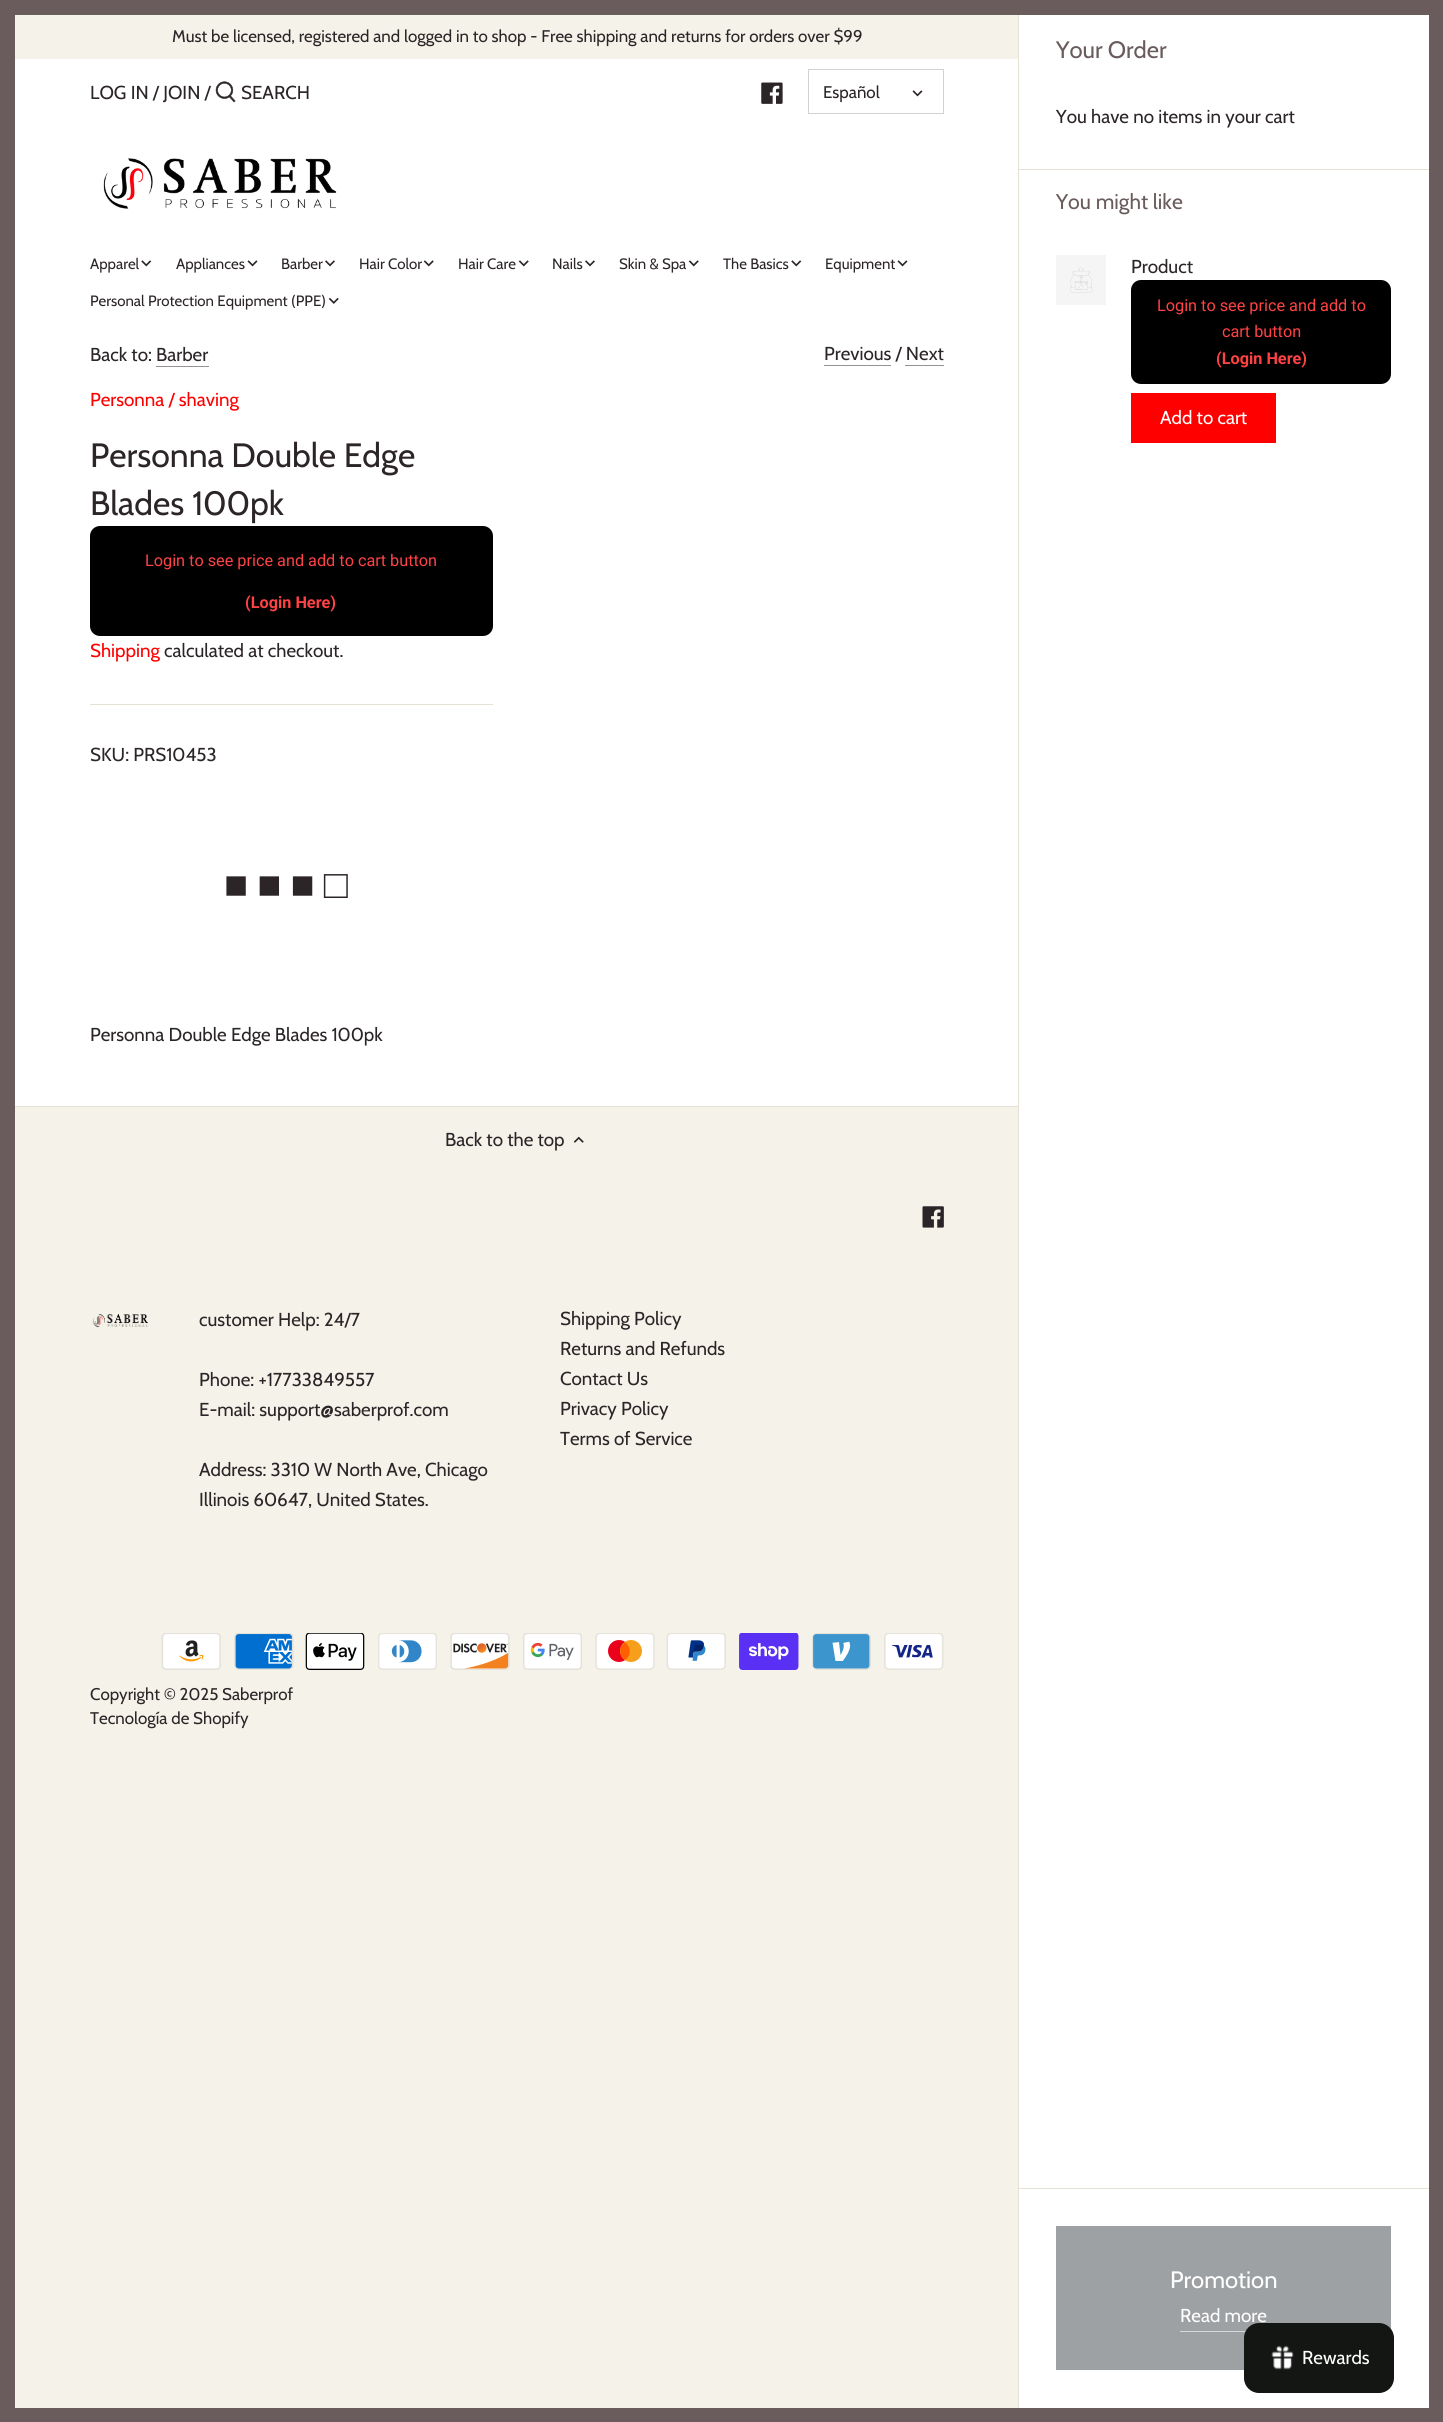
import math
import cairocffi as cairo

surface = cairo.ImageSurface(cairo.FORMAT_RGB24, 1443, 2422)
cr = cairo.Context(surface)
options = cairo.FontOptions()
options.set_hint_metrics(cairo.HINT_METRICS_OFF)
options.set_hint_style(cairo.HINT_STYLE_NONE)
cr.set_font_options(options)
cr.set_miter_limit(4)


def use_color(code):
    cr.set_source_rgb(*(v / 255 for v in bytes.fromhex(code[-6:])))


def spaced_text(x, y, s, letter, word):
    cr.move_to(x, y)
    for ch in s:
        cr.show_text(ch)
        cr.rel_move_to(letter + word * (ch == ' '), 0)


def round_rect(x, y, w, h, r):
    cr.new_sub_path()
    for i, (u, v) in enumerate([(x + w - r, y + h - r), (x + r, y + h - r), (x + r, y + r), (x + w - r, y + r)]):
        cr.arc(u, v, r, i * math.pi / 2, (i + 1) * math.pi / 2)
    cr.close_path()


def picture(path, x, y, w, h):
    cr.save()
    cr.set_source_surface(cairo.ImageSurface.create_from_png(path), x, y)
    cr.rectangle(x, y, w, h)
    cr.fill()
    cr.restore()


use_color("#f4f2e9")
cr.paint()
cr.rectangle(7.5, 7.5, 1019, 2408)
use_color("#6a5b5c")
cr.set_line_width(15)
cr.stroke()
use_color("#ffffff")
cr.rectangle(15, 59, 1003, 1047)
cr.fill()
cr.select_font_face("Cabin")
cr.set_font_size(16.9)
use_color("#2c2528")
cr.move_to(172, 42)
cr.show_text("Must be licensed, registered and logged in to shop - Free shipping and returns for orders over $99")
cr.set_font_size(18.75)
cr.move_to(90, 99)
cr.show_text("LOG IN / JOIN /")
picture("img1.png", 215, 81, 21, 22)
cr.move_to(241, 99)
cr.show_text("SEARCH")
picture("img2.png", 761, 82, 22, 22)
cr.rectangle(808.5, 69.5, 135, 44)
use_color("#d3d1d2")
cr.set_line_width(1)
cr.stroke()
cr.set_font_size(16.9)
use_color("#2c2528")
cr.move_to(823, 98)
cr.show_text("Español")
picture("img3.png", 912, 90, 11, 7)
picture("img4.png", 103, 158, 234, 51)
cr.set_font_size(15)
cr.move_to(90, 269)
cr.show_text("Apparel")
picture("img5.png", 141, 260, 11, 7)
cr.move_to(176, 269)
cr.show_text("Appliances")
picture("img3.png", 247, 260, 11, 7)
cr.move_to(281, 269)
cr.show_text("Barber")
picture("img6.png", 325, 260, 10, 7)
cr.move_to(359, 269)
cr.show_text("Hair Color")
picture("img7.png", 423, 260, 11, 7)
cr.move_to(458, 269)
cr.show_text("Hair Care")
picture("img7.png", 518, 260, 11, 7)
cr.move_to(552, 269)
cr.show_text("Nails")
picture("img6.png", 585, 260, 10, 7)
cr.move_to(619, 269)
cr.show_text("Skin & Spa")
picture("img7.png", 688, 260, 11, 7)
cr.move_to(723, 269)
cr.show_text("The Basics")
picture("img5.png", 791, 260, 11, 7)
cr.move_to(825, 269)
cr.show_text("Equipment")
picture("img3.png", 897, 260, 11, 7)
cr.move_to(90, 306)
cr.show_text("Personal Protection Equipment (PPE)")
picture("img8.png", 328, 297, 11, 7)
cr.set_font_size(18.75)
cr.move_to(90, 361)
cr.show_text("Back to: Barber")
use_color("#969294")
cr.rectangle(156, 366, 53, 1)
cr.fill()
use_color("#2c2528")
cr.move_to(824, 360)
cr.show_text("Previous / Next")
use_color("#969294")
cr.rectangle(824, 365, 67, 1)
cr.fill()
cr.rectangle(905, 365, 39, 1)
cr.fill()
use_color("#e5e2d4")
cr.rectangle(90, 704, 403, 1)
cr.fill()
use_color("#ff0000")
cr.move_to(90, 406)
cr.show_text("Personna / shaving")
cr.set_font_size(33.75)
use_color("#2c2528")
cr.move_to(90, 467)
cr.show_text("Personna Double Edge")
cr.move_to(90, 515)
cr.show_text("Blades 100pk")
use_color("#000000")
round_rect(90, 526, 403, 110, 10)
cr.fill()
cr.select_font_face("Roboto")
cr.set_font_size(16.25)
use_color("#ff4244")
cr.move_to(145, 566)
cr.show_text("Login to see price and add to cart button")
cr.select_font_face("Roboto", cairo.FONT_SLANT_NORMAL, cairo.FONT_WEIGHT_BOLD)
cr.move_to(245, 608)
cr.show_text("(Login Here)")
cr.select_font_face("Cabin")
cr.set_font_size(18.75)
use_color("#ff0000")
cr.move_to(90, 657)
cr.show_text("Shipping")
use_color("#2c2528")
cr.move_to(164, 657)
cr.show_text("calculated at checkout.")
cr.move_to(90, 761)
cr.show_text("SKU: PRS10453")
cr.select_font_face("Liberation Sans")
cr.set_font_size(40)
spaced_text(224, 898, "■ ■ ■ □", 0, -2)
cr.select_font_face("Cabin")
cr.set_font_size(18.75)
cr.move_to(90, 1041)
cr.show_text("Personna Double Edge Blades 100pk")
use_color("#ffffff")
cr.rectangle(1019, 15, 410, 2393)
cr.fill()
use_color("#e5e2d4")
cr.rectangle(15, 1106, 1004, 1)
cr.fill()
use_color("#2c2528")
cr.move_to(445, 1146)
cr.show_text("Back to the top")
picture("img9.png", 573, 1136, 11, 7)
picture("img10.png", 922, 1206, 22, 22)
picture("img11.png", 92, 1314, 56, 14)
cr.move_to(199, 1326)
cr.show_text("customer Help: 24/7")
cr.move_to(199, 1386)
cr.show_text("Phone: +17733849557")
cr.move_to(199, 1416)
cr.show_text("E-mail: support@saberprof.com")
cr.move_to(199, 1476)
cr.show_text("Address: 3310 W North Ave, Chicago")
cr.move_to(199, 1506)
cr.show_text("Illinois 60647, United States.")
cr.move_to(560, 1325)
cr.show_text("Shipping Policy")
cr.move_to(560, 1355)
cr.show_text("Returns and Refunds")
cr.move_to(560, 1385)
cr.show_text("Contact Us")
cr.move_to(560, 1415)
cr.show_text("Privacy Policy")
cr.move_to(560, 1445)
cr.show_text("Terms of Service")
picture("img12.png", 161, 1633, 60, 37)
picture("img13.png", 234, 1633, 60, 37)
picture("img14.png", 305, 1633, 60, 37)
picture("img15.png", 378, 1633, 59, 37)
picture("img16.png", 450, 1633, 60, 37)
picture("img17.png", 523, 1633, 59, 37)
picture("img18.png", 595, 1633, 60, 37)
picture("img19.png", 666, 1633, 60, 37)
picture("img20.png", 739, 1633, 60, 37)
picture("img21.png", 812, 1633, 59, 37)
picture("img22.png", 884, 1633, 60, 37)
cr.set_font_size(16.9)
cr.move_to(90, 1700)
cr.show_text("Copyright © 2025 Saberprof")
cr.move_to(90, 1724)
cr.show_text("Tecnología de Shopify")
use_color("#6a5b5c")
cr.rectangle(1034, 0, 409, 15)
cr.fill()
cr.rectangle(1034, 2408, 409, 14)
cr.fill()
use_color("#e5e2d4")
cr.rectangle(1018, 15, 1, 2393)
cr.fill()
cr.set_font_size(23.75)
use_color("#6a5b5c")
cr.move_to(1056, 58)
cr.show_text("Your Order")
cr.set_font_size(18.75)
use_color("#2c2528")
cr.move_to(1056, 123)
cr.show_text("You have no items in your cart")
use_color("#e5e2d4")
cr.rectangle(1019, 169, 410, 1)
cr.fill()
cr.set_font_size(21.25)
use_color("#6a5b5c")
cr.move_to(1056, 209)
cr.show_text("You might like")
use_color("#f5f5f5")
cr.rectangle(1056, 255, 50, 50)
cr.fill()
picture("img23.png", 1070, 267, 23, 26)
cr.set_font_size(18.75)
use_color("#2c2528")
cr.move_to(1131, 273)
cr.show_text("Product")
use_color("#000000")
round_rect(1131, 280, 260, 104, 10)
cr.fill()
cr.select_font_face("Roboto")
cr.set_font_size(16.25)
use_color("#ff4244")
cr.move_to(1157, 311)
cr.show_text("Login to see price and add to")
cr.move_to(1222, 337)
cr.show_text("cart button")
cr.select_font_face("Roboto", cairo.FONT_SLANT_NORMAL, cairo.FONT_WEIGHT_BOLD)
cr.move_to(1216, 364)
cr.show_text("(Login Here)")
use_color("#ff0000")
cr.rectangle(1131, 393, 145, 50)
cr.fill()
cr.select_font_face("Cabin")
cr.set_font_size(18.75)
use_color("#ffffff")
cr.move_to(1160, 424)
cr.show_text("Add to cart")
use_color("#e5e2d4")
cr.rectangle(1019, 2188, 410, 1)
cr.fill()
use_color("#9ea1a3")
cr.rectangle(1056, 2226, 335, 144)
cr.fill()
cr.set_font_size(23.75)
use_color("#ffffff")
cr.move_to(1170, 2288)
cr.show_text("Promotion")
cr.set_font_size(18.75)
cr.move_to(1180, 2322)
cr.show_text("Read more")
use_color("#d8d9da")
cr.rectangle(1180, 2331, 66, 1)
cr.fill()
use_color("#6a5b5c")
cr.rectangle(1429, 15, 14, 2393)
cr.fill()
use_color("#141614")
round_rect(1244, 2323, 150, 70, 15)
cr.fill()
picture("img24.png", 1271, 2345, 23, 25)
use_color("#ffffff")
cr.move_to(1302, 2364)
cr.show_text("Rewards")
surface.write_to_png("result.png")
